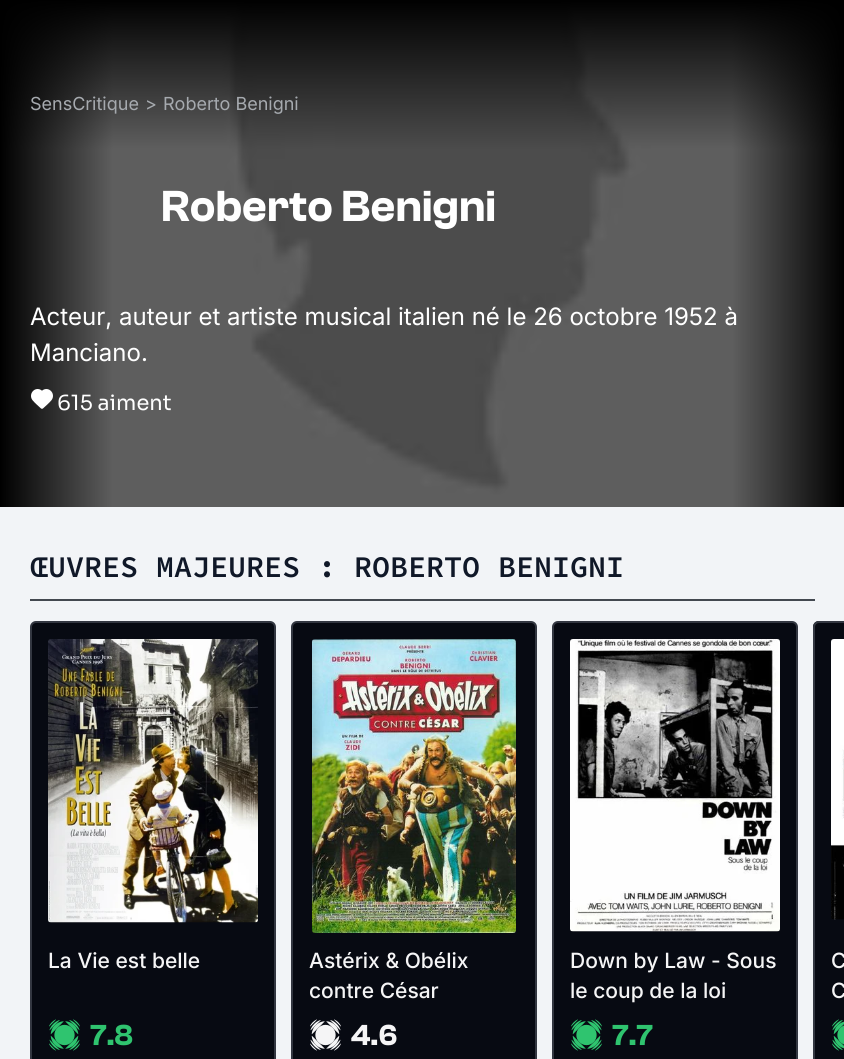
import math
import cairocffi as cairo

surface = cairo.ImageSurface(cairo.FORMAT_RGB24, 844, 1059)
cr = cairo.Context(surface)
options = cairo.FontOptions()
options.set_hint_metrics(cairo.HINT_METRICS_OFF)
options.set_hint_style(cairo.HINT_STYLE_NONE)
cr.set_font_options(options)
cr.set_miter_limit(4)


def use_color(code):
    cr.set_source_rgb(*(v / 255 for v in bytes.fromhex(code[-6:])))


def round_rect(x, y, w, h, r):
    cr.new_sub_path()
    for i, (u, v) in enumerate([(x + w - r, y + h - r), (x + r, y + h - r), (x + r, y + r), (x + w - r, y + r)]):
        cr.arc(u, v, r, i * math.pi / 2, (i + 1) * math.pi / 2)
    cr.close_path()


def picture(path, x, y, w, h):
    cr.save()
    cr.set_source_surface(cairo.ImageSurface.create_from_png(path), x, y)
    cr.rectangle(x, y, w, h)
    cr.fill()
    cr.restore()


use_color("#f2f4f7")
cr.paint()
picture("img1.png", 0, 0, 844, 507)
cr.select_font_face("Inter")
cr.set_font_size(18)
use_color("#a6aaaf")
cr.move_to(30, 110)
cr.show_text("SensCritique")
cr.move_to(145, 110)
cr.show_text(">")
cr.move_to(163, 110)
cr.show_text("Roberto Benigni")
cr.select_font_face("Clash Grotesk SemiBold")
cr.set_font_size(45)
use_color("#ffffff")
cr.move_to(161, 221)
cr.show_text("Roberto Benigni")
cr.select_font_face("Inter")
cr.set_font_size(24)
cr.move_to(30, 325)
cr.show_text("Acteur, auteur et artiste musical italien né le 26 octobre 1952 à")
cr.move_to(30, 361)
cr.show_text("Manciano.")
picture("img2.png", 31, 389, 22, 20)
cr.select_font_face("Sora")
cr.set_font_size(21)
cr.move_to(57, 410)
cr.show_text("615 aiment")
use_color("#434850")
cr.rectangle(30, 599, 785, 2)
cr.fill()
cr.select_font_face("Source Code Pro SemiBold")
cr.set_font_size(30)
use_color("#101828")
cr.move_to(30, 577)
cr.show_text("ŒUVRES MAJEURES : ROBERTO BENIGNI")
use_color("#070a12")
round_rect(31, 622, 244, 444, 5)
cr.fill_preserve()
use_color("#333741")
cr.stroke()
picture("img3.png", 48, 639, 210, 284)
cr.select_font_face("Inter Medium")
cr.set_font_size(21)
use_color("#f5f5f6")
cr.move_to(48, 968)
cr.show_text("La Vie est belle")
picture("img4.png", 49, 1019, 31, 32)
cr.select_font_face("Clash Grotesk SemiBold")
cr.set_font_size(30)
use_color("#2fc46f")
cr.move_to(90, 1045)
cr.show_text("7.8")
use_color("#070a12")
round_rect(292, 622, 244, 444, 5)
cr.fill_preserve()
use_color("#333741")
cr.stroke()
picture("img5.png", 312, 639, 204, 294)
cr.select_font_face("Inter Medium")
cr.set_font_size(21)
use_color("#f5f5f6")
cr.move_to(309, 968)
cr.show_text("Astérix & Obélix")
cr.move_to(309, 998)
cr.show_text("contre César")
picture("img6.png", 310, 1019, 31, 32)
cr.select_font_face("Clash Grotesk SemiBold")
cr.set_font_size(30)
cr.move_to(351, 1045)
cr.show_text("4.6")
use_color("#070a12")
round_rect(553, 622, 244, 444, 5)
cr.fill_preserve()
use_color("#333741")
cr.stroke()
picture("img7.png", 570, 639, 210, 293)
cr.select_font_face("Inter Medium")
cr.set_font_size(21)
use_color("#f5f5f6")
cr.move_to(570, 968)
cr.show_text("Down by Law - Sous")
cr.move_to(570, 998)
cr.show_text("le coup de la loi")
picture("img4.png", 571, 1019, 31, 32)
cr.select_font_face("Clash Grotesk SemiBold")
cr.set_font_size(30)
use_color("#2fc46f")
cr.move_to(612, 1045)
cr.show_text("7.7")
use_color("#070a12")
cr.new_path()
cr.move_to(819, 621)
cr.line_to(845, 621)
cr.line_to(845, 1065)
cr.line_to(819, 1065)
cr.curve_to(815.5, 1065, 813, 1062.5, 813, 1059)
cr.line_to(813, 627)
cr.curve_to(813, 623.5, 815.5, 621, 819, 621)
cr.close_path()
cr.fill()
round_rect(814, 622, 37, 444, 5)
use_color("#333741")
cr.stroke()
picture("img8.png", 831, 639, 13, 281)
cr.select_font_face("Inter Medium")
cr.set_font_size(21)
use_color("#f5f5f6")
cr.move_to(831, 968)
cr.show_text("C")
cr.move_to(831, 998)
cr.show_text("C")
picture("img9.png", 832, 1019, 12, 32)
surface.write_to_png("result.png")
